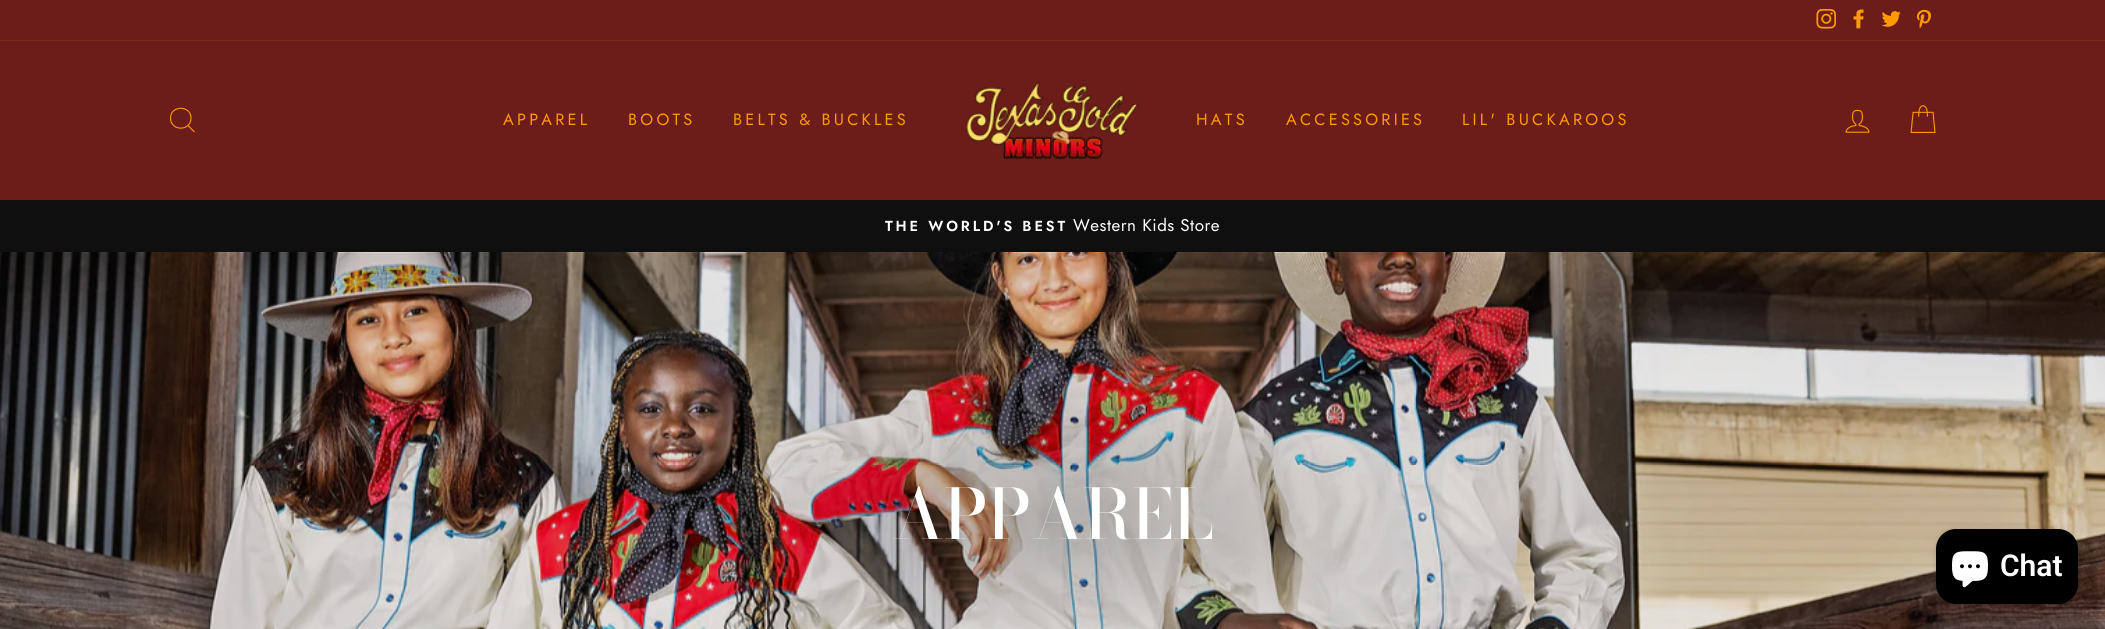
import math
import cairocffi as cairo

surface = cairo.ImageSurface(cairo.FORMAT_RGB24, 2105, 629)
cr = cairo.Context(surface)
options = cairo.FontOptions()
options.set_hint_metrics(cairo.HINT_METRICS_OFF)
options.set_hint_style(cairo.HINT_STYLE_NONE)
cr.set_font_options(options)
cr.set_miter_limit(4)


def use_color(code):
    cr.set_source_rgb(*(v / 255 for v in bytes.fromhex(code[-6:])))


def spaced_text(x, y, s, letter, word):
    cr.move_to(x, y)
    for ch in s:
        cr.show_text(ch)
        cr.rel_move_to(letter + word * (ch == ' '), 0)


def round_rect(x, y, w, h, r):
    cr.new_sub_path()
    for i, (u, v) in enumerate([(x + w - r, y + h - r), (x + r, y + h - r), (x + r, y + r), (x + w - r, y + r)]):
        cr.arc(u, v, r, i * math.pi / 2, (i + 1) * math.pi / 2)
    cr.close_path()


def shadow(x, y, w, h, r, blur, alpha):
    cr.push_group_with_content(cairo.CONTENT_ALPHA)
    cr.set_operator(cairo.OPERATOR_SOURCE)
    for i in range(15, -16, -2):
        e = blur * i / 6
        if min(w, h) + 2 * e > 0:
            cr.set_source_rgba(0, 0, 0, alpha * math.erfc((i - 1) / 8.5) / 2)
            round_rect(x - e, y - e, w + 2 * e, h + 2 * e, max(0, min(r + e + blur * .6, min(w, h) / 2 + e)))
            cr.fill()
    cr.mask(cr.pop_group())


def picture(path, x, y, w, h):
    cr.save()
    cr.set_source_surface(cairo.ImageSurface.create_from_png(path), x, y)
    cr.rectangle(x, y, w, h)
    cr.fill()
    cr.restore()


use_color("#6c1d19")
cr.paint()
picture("img1.png", 1816, 9, 20, 20)
picture("img2.png", 1853, 9, 11, 20)
picture("img3.png", 1881, 11, 20, 16)
picture("img4.png", 1916, 9, 15, 20)
use_color("#7b2917")
cr.rectangle(0, 40, 2105, 1)
cr.fill()
cr.new_path()
cr.move_to(191, 118)
cr.curve_to(191, 131.5, 170.5, 131.5, 170.5, 118)
cr.curve_to(170.5, 105, 191, 105, 191, 118)
cr.close_path()
cr.move_to(194.5, 132)
cr.line_to(188, 125.5)
use_color("#ff9900")
cr.set_line_width(1.1)
cr.stroke()
cr.select_font_face("Jost")
cr.set_font_size(16.25)
spaced_text(503, 125, "APPAREL", 3.25, 0)
spaced_text(628, 125, "BOOTS", 3.25, 0)
spaced_text(733, 125, "BELTS & BUCKLES", 3.25, 0)
picture("img5.png", 966, 81, 172, 78)
spaced_text(1196, 125, "HATS", 3.25, 0)
spaced_text(1286, 125, "ACCESSORIES", 3.25, 0)
spaced_text(1462, 125, "LIL' BUCKAROOS", 3.25, 0)
picture("img6.png", 1845, 109, 25, 24)
picture("img7.png", 1910, 105, 26, 28)
use_color("#0f0f0f")
cr.rectangle(0, 200, 2105, 52)
cr.fill()
cr.select_font_face("Jost SemiBold")
cr.set_font_size(14.5)
use_color("#ffffff")
spaced_text(885, 231, "THE WORLD'S BEST", 2.9, 0)
cr.select_font_face("Jost")
cr.set_font_size(17)
spaced_text(1073, 231, "Western Kids Store", 0.5, 0)
picture("img8.png", 0, 252, 2105, 377)
cr.select_font_face("Bodoni Moda Medium")
cr.set_font_size(69)
cr.move_to(892, 539)
cr.show_text("APPAREL")
use_color("#000000")
shadow(1936, 529, 142, 75, 20, 3, 0.15)
use_color("#000000")
round_rect(1936, 529, 142, 75, 20)
cr.fill()
picture("img9.png", 1952, 551, 36, 37)
cr.select_font_face("Roboto SemiBold")
cr.set_font_size(30)
use_color("#ffffff")
cr.move_to(2000, 576)
cr.show_text("Chat")
surface.write_to_png("result.png")
